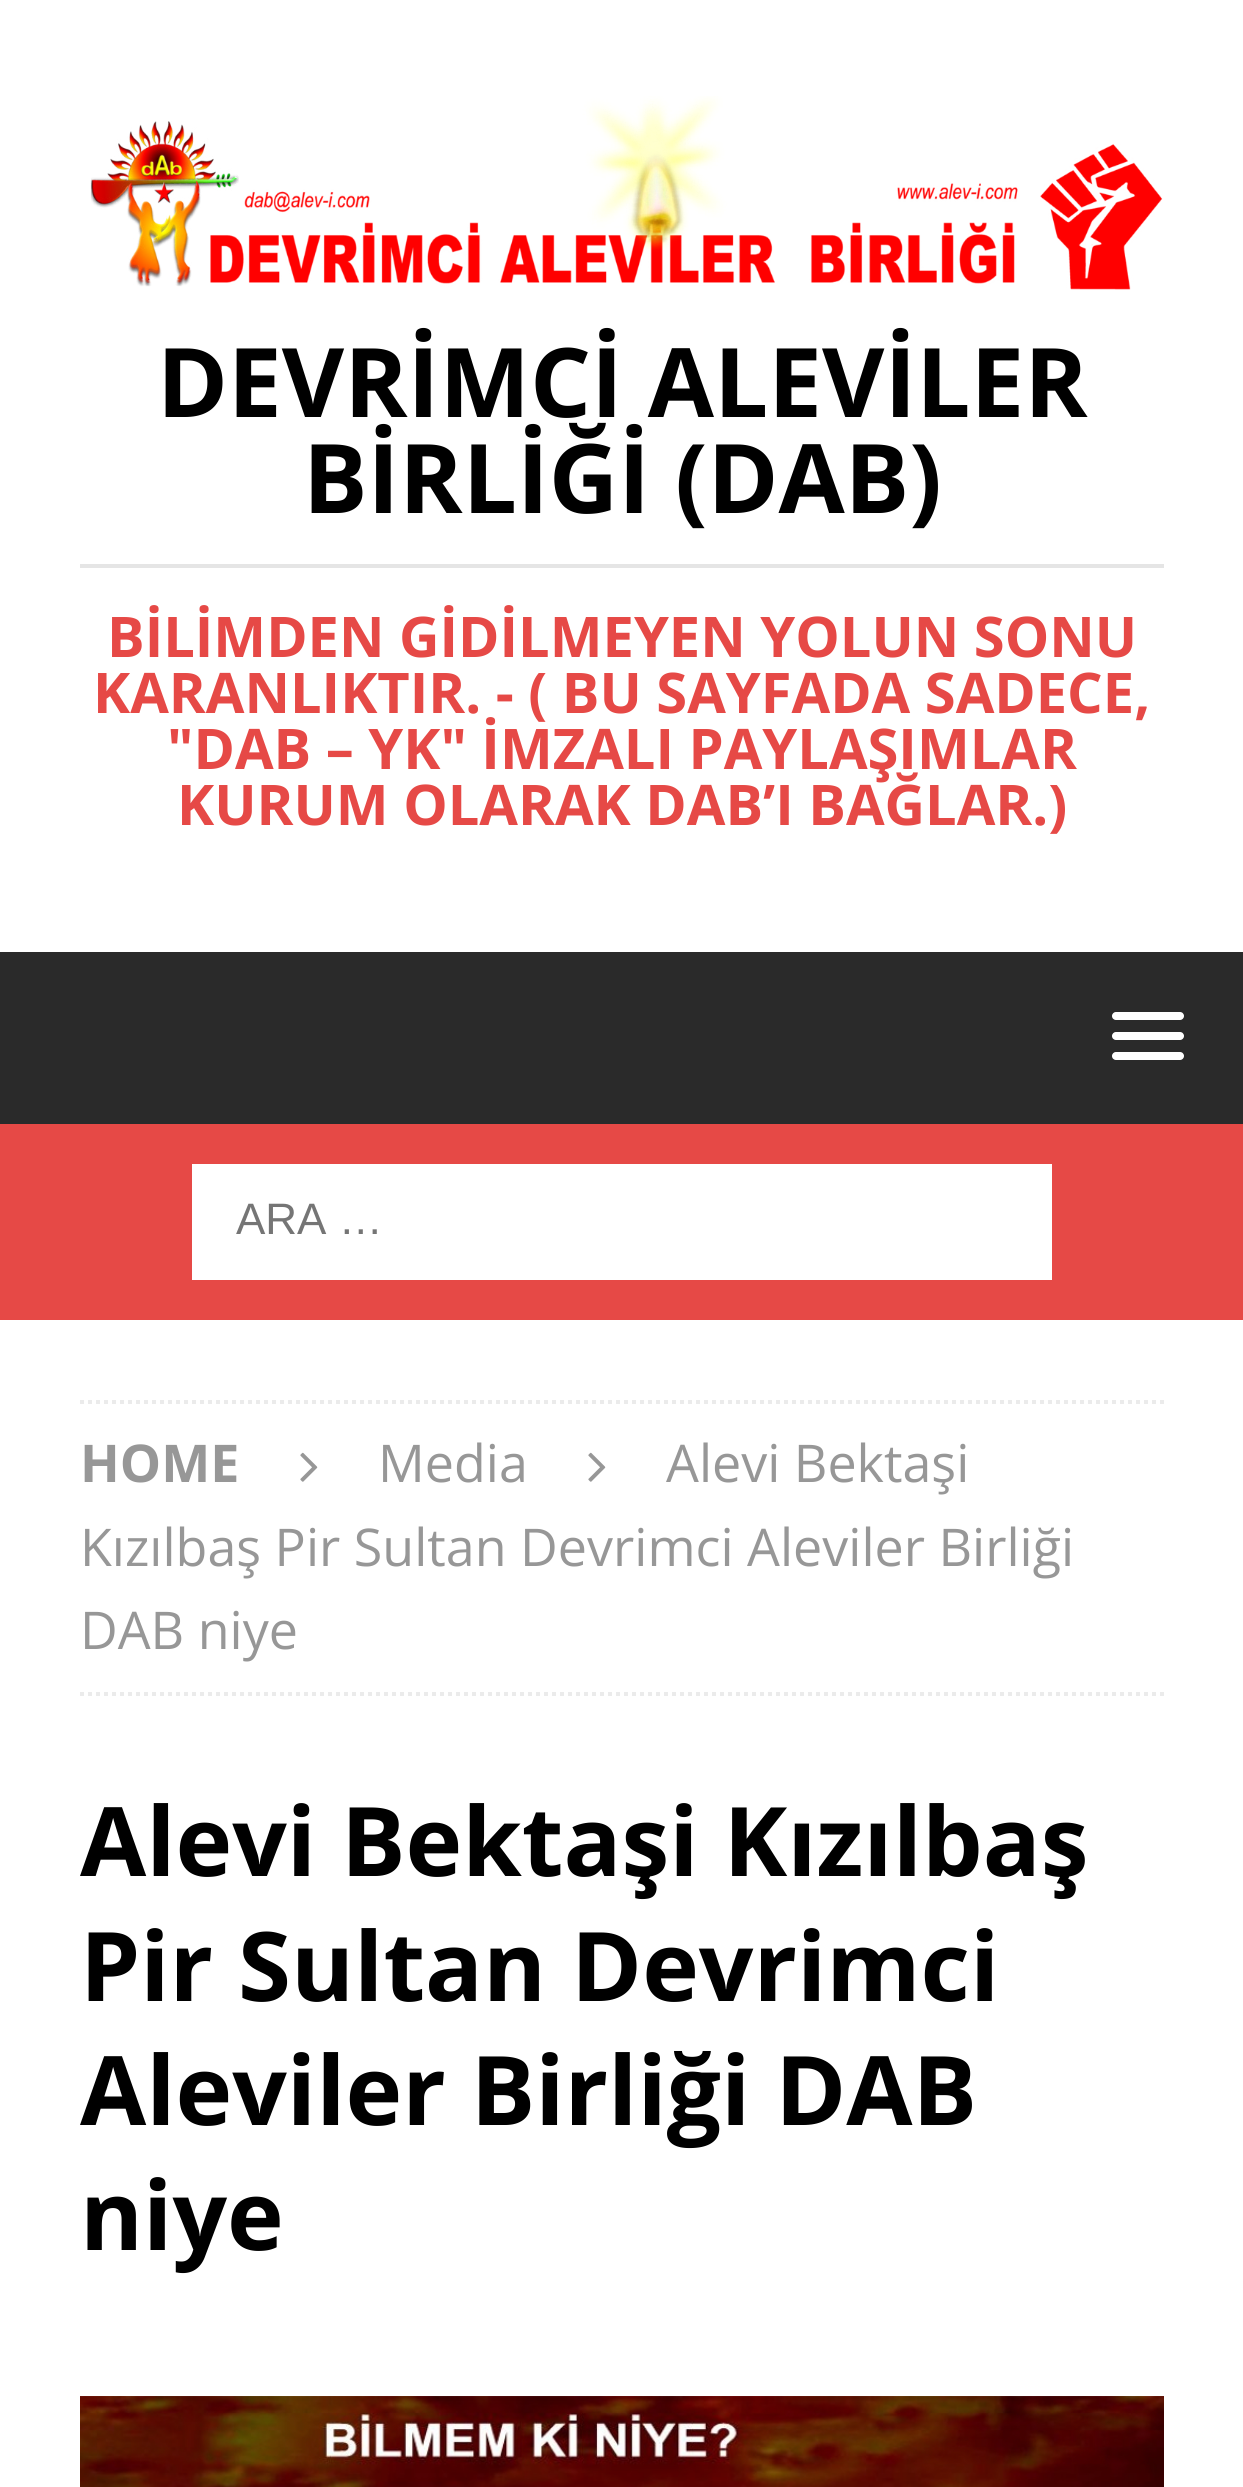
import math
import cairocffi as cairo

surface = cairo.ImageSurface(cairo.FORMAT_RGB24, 1243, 2487)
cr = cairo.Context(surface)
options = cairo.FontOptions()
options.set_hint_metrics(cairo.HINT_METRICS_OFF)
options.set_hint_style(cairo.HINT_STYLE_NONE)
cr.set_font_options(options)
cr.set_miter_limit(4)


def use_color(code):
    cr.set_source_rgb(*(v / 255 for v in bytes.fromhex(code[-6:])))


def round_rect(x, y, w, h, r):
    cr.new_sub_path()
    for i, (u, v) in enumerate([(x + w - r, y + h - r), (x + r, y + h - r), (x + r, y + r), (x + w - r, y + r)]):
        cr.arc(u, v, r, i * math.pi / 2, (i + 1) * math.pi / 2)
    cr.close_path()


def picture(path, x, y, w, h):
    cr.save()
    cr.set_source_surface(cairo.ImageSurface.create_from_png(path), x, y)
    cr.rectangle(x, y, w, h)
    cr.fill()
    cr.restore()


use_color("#ffffff")
cr.paint()
picture("img1.png", 90, 96, 1073, 194)
cr.select_font_face("Open Sans", cairo.FONT_SLANT_NORMAL, cairo.FONT_WEIGHT_BOLD)
cr.set_font_size(96)
use_color("#000000")
cr.move_to(157, 417)
cr.show_text("DEVRİMCİ ALEVİLER")
cr.move_to(303, 513)
cr.show_text("BİRLİĞİ (DAB)")
use_color("#e5e5e5")
cr.rectangle(80, 564, 1084, 4)
cr.fill()
cr.set_font_size(56)
use_color("#e64946")
cr.move_to(107, 657)
cr.show_text("BİLİMDEN GİDİLMEYEN YOLUN SONU")
cr.move_to(93, 713)
cr.show_text("KARANLIKTIR. - ( BU SAYFADA SADECE,")
cr.move_to(167, 769)
cr.show_text("\"DAB – YK\" İMZALI PAYLAŞIMLAR")
cr.move_to(177, 825)
cr.show_text("KURUM OLARAK DAB’I BAĞLAR.)")
use_color("#2a2a2a")
cr.rectangle(0, 952, 1243, 172)
cr.fill()
use_color("#ffffff")
round_rect(1112, 1012, 72, 8, 4)
cr.fill()
round_rect(1112, 1032, 72, 8, 4)
cr.fill()
round_rect(1112, 1052, 72, 8, 4)
cr.fill()
use_color("#e64946")
cr.rectangle(0, 1124, 1243, 196)
cr.fill()
use_color("#ffffff")
cr.rectangle(192, 1164, 860, 116)
cr.fill()
cr.select_font_face("Liberation Sans")
cr.set_font_size(44)
use_color("#757575")
cr.move_to(236, 1234)
cr.show_text("ARA …")
cr.new_path()
cr.move_to(80, 1402)
cr.line_to(1164, 1402)
use_color("#ebebeb")
cr.set_line_width(4)
cr.set_dash([4, 4])
cr.stroke()
cr.new_path()
cr.move_to(80, 1694)
cr.line_to(1164, 1694)
cr.stroke()
cr.select_font_face("Open Sans", cairo.FONT_SLANT_NORMAL, cairo.FONT_WEIGHT_BOLD)
cr.set_font_size(52)
use_color("#979797")
cr.move_to(80, 1482)
cr.show_text("HOME")
picture("img2.png", 300, 1452, 18, 30)
cr.select_font_face("Open Sans")
cr.move_to(378, 1482)
cr.show_text("Media")
picture("img2.png", 588, 1452, 18, 30)
cr.move_to(666, 1482)
cr.show_text("Alevi Bektaşi")
cr.move_to(80, 1566)
cr.show_text("Kızılbaş Pir Sultan Devrimci Aleviler Birliği")
cr.move_to(80, 1649)
cr.show_text("DAB niye")
cr.select_font_face("Open Sans", cairo.FONT_SLANT_NORMAL, cairo.FONT_WEIGHT_BOLD)
cr.set_font_size(96)
use_color("#000000")
cr.move_to(80, 1876)
cr.show_text("Alevi Bektaşi Kızılbaş")
cr.move_to(80, 2001)
cr.show_text("Pir Sultan Devrimci")
cr.move_to(80, 2125)
cr.show_text("Aleviler Birliği DAB")
cr.move_to(80, 2250)
cr.show_text("niye")
picture("img3.png", 80, 2396, 1084, 91)
surface.write_to_png("result.png")
